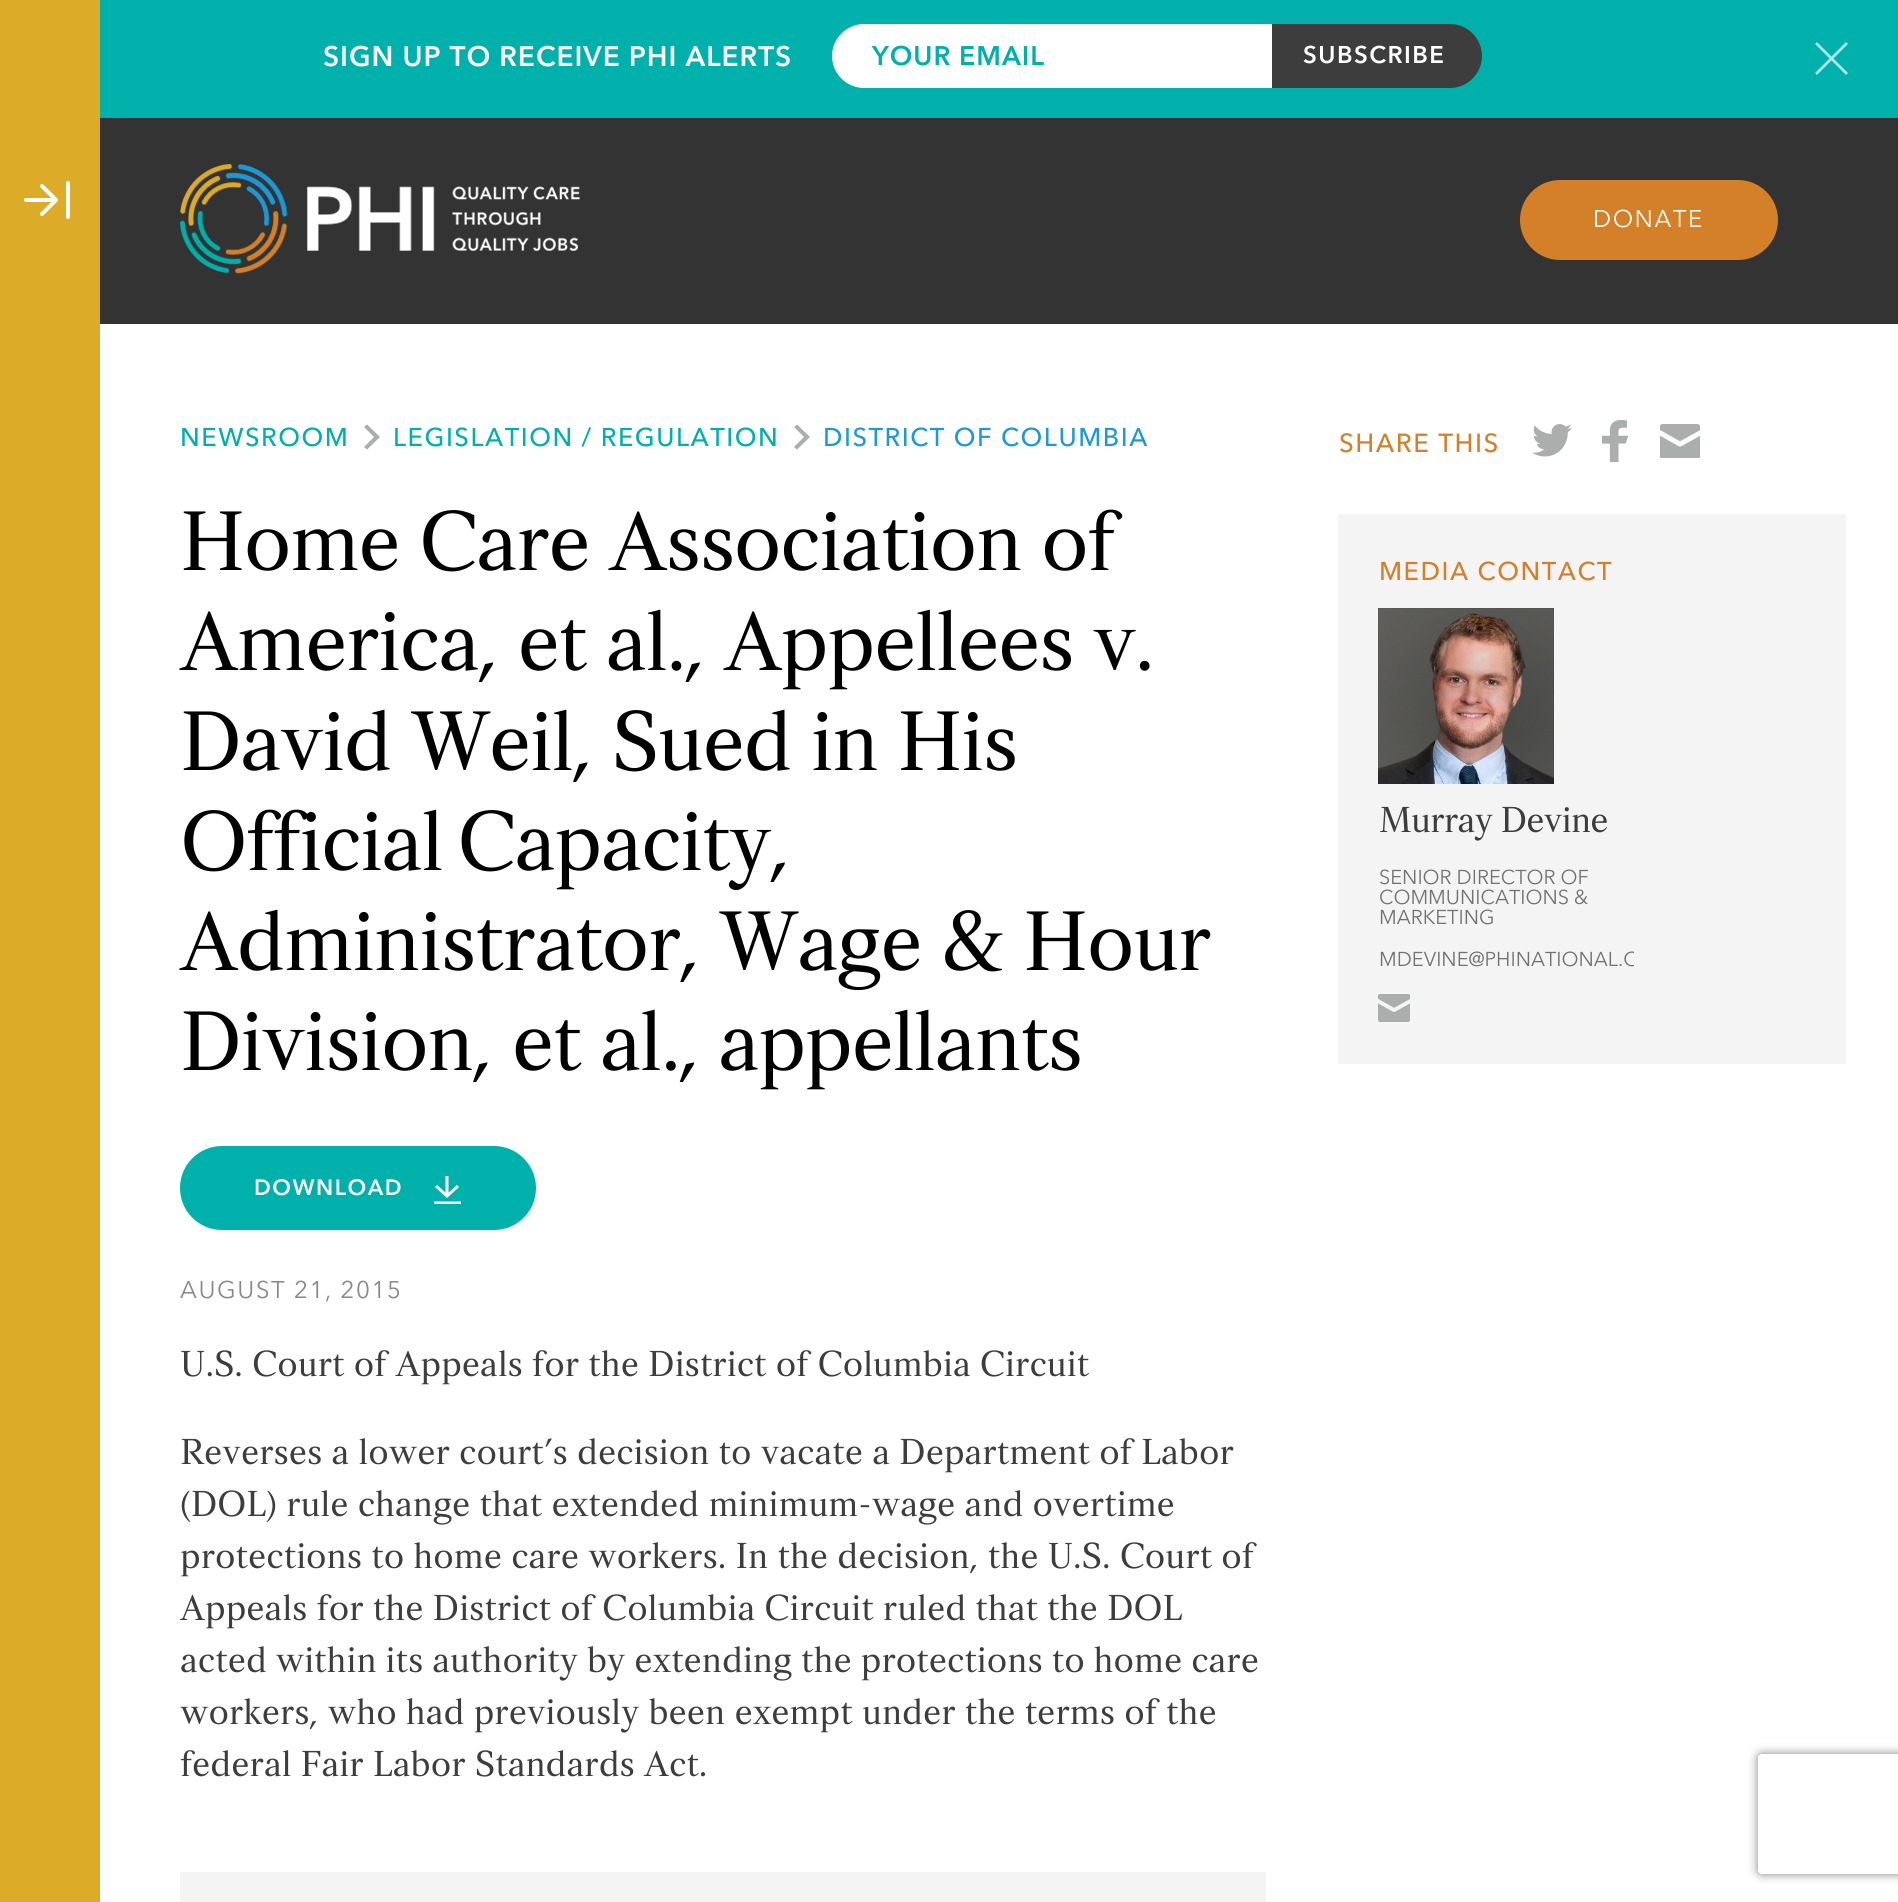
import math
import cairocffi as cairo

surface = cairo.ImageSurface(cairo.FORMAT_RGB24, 1898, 1902)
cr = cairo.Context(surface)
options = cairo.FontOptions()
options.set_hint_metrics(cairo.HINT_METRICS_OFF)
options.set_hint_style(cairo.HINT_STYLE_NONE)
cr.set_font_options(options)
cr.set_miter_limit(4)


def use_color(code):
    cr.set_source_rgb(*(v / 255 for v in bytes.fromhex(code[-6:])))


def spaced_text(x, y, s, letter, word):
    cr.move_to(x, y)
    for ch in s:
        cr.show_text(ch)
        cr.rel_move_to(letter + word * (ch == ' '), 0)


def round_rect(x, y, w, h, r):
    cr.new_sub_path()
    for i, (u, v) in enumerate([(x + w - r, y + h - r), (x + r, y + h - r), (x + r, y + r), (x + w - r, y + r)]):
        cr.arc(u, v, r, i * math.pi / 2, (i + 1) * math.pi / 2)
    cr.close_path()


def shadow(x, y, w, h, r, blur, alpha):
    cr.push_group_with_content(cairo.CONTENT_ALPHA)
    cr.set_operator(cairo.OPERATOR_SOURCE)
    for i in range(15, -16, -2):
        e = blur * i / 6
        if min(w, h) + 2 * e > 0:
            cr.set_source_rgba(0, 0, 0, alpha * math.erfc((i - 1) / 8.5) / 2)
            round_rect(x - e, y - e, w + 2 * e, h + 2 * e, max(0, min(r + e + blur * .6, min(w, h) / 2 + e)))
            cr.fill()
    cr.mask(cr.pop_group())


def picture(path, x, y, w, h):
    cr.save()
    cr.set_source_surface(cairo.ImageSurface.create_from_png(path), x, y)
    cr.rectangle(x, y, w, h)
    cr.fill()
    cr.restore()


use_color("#333333")
cr.paint()
use_color("#00b0ab")
cr.rectangle(100, 0, 1798, 118)
cr.fill()
cr.select_font_face("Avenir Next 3")
cr.set_font_size(28)
use_color("#ffffff")
spaced_text(323, 66, "SIGN UP TO RECEIVE PHI ALERTS", 1, 0)
cr.new_path()
cr.move_to(864, 24)
cr.line_to(1272, 24)
cr.line_to(1272, 88)
cr.line_to(864, 88)
cr.curve_to(846.5, 88, 832, 73.5, 832, 56)
cr.curve_to(832, 38.5, 846.5, 24, 864, 24)
cr.close_path()
cr.fill()
cr.set_font_size(26.75)
use_color("#00b0ab")
spaced_text(872, 65, "YOUR EMAIL", 1, 0)
use_color("#3d3d3d")
cr.new_path()
cr.move_to(1272, 24)
cr.line_to(1450, 24)
cr.curve_to(1467.5, 24, 1482, 38.5, 1482, 56)
cr.curve_to(1482, 73.5, 1467.5, 88, 1450, 88)
cr.line_to(1272, 88)
cr.close_path()
cr.fill()
cr.set_font_size(24)
use_color("#ffffff")
spaced_text(1303, 63, "SUBSCRIBE", 1.5, 0)
cr.new_path()
cr.move_to(1816, 43)
cr.line_to(1847, 74)
cr.move_to(1816, 74)
cr.line_to(1847, 43)
use_color("#ade6e4")
cr.set_line_width(2.8)
cr.stroke()
use_color("#dcab27")
cr.rectangle(0, 0, 100, 1902)
cr.fill()
cr.new_path()
cr.move_to(26, 200)
cr.line_to(56, 200)
cr.move_to(42, 214)
cr.line_to(56, 200)
cr.line_to(42, 186)
cr.move_to(68, 217)
cr.line_to(68, 183)
use_color("#ffffff")
cr.set_line_width(4)
cr.set_line_cap(cairo.LINE_CAP_ROUND)
cr.set_line_join(cairo.LINE_JOIN_ROUND)
cr.stroke()
picture("img1.png", 180, 164, 400, 110)
use_color("#d48028")
round_rect(1520, 180, 258, 80, 40)
cr.fill()
cr.select_font_face("Avenir Next")
use_color("#ffffff")
spaced_text(1593, 227, "DONATE", 1.5, 0)
cr.rectangle(100, 324, 1798, 1578)
cr.fill()
cr.select_font_face("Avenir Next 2")
cr.set_font_size(25.6)
use_color("#00b0ab")
spaced_text(180, 446, "NEWSROOM", 1.5, 0)
use_color("#aaaead")
cr.set_fill_rule(cairo.FILL_RULE_EVEN_ODD)
cr.new_path()
cr.move_to(367, 424.5)
cr.line_to(364, 427)
cr.line_to(374, 437)
cr.line_to(364, 447)
cr.line_to(367, 449.5)
cr.line_to(380, 437)
cr.close_path()
cr.fill()
use_color("#00b0ab")
spaced_text(393, 446, "LEGISLATION / REGULATION", 1.5, 0)
use_color("#aaaead")
cr.new_path()
cr.move_to(797, 424.5)
cr.line_to(794, 427)
cr.line_to(804, 437)
cr.line_to(794, 447)
cr.line_to(797, 449.5)
cr.line_to(810, 437)
cr.close_path()
cr.fill()
use_color("#1d9ad6")
spaced_text(823, 446, "DISTRICT OF COLUMBIA", 1.5, 0)
cr.select_font_face("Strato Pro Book")
cr.set_font_size(84)
use_color("#000000")
spaced_text(180, 570, "Home Care Association of", -1.6, 0)
spaced_text(180, 670, "America, et al., Appellees v.", -1.6, 0)
spaced_text(180, 770, "David Weil, Sued in His", -1.6, 0)
spaced_text(180, 870, "Official Capacity,", -1.6, -5)
spaced_text(180, 970, "Administrator, Wage & Hour", -1.6, 0)
spaced_text(180, 1070, "Division, et al., appellants", -1.6, 0)
use_color("#00b0ab")
round_rect(180, 1146, 356, 84, 42)
cr.fill()
cr.select_font_face("Avenir Next 3")
cr.set_font_size(22)
use_color("#ffffff")
spaced_text(254, 1195, "DOWNLOAD", 1.5, 0)
cr.new_path()
cr.move_to(447, 1176)
cr.line_to(447, 1196)
cr.set_line_width(3)
cr.set_line_cap(cairo.LINE_CAP_BUTT)
cr.stroke()
cr.new_path()
cr.move_to(436, 1186)
cr.line_to(447, 1196)
cr.line_to(458, 1186)
cr.set_line_join(cairo.LINE_JOIN_MITER)
cr.stroke()
cr.save()
cr.set_fill_rule(cairo.FILL_RULE_WINDING)
cr.rectangle(432, 1176, 30, 28)
cr.clip()
cr.new_path()
cr.move_to(434, 1203)
cr.line_to(461, 1203)
cr.stroke()
cr.restore()
cr.select_font_face("Avenir Next")
cr.set_font_size(24)
use_color("#888888")
spaced_text(180, 1298, "AUGUST 21, 2015", 1.6, 0)
cr.select_font_face("Strato Pro Book")
cr.set_font_size(36)
use_color("#3d3d3d")
cr.move_to(180, 1376)
cr.show_text("U.S. Court of Appeals for the District of Columbia Circuit")
cr.move_to(180, 1464)
cr.show_text("Reverses a lower court’s decision to vacate a Department of Labor")
cr.move_to(180, 1516)
cr.show_text("(DOL) rule change that extended minimum-wage and overtime")
cr.move_to(180, 1568)
cr.show_text("protections to home care workers. In the decision, the U.S. Court of")
cr.move_to(180, 1620)
cr.show_text("Appeals for the District of Columbia Circuit ruled that the DOL")
spaced_text(180, 1672, "acted within its authority by extending the protections to home care", 0, -0.25)
cr.move_to(180, 1724)
cr.show_text("workers, who had previously been exempt under the terms of the")
cr.move_to(180, 1776)
cr.show_text("federal Fair Labor Standards Act.")
use_color("#f4f4f4")
cr.rectangle(180, 1872, 1086, 30)
cr.fill()
cr.select_font_face("Avenir Next 2")
cr.set_font_size(26)
use_color("#d48028")
spaced_text(1339, 452, "SHARE THIS", 1.5, 0)
picture("img2.png", 1532, 424, 40, 33)
picture("img3.png", 1602, 420, 27, 42)
picture("img4.png", 1660, 424, 40, 34)
use_color("#f4f4f4")
cr.rectangle(1338, 514, 508, 550)
cr.fill()
cr.set_font_size(25.6)
use_color("#d48028")
spaced_text(1379, 580, "MEDIA CONTACT", 1.5, 0)
picture("img5.png", 1378, 608, 176, 176)
cr.select_font_face("Strato Pro Book")
cr.set_font_size(36)
use_color("#3d3d3d")
spaced_text(1379, 832, "Murray Devine", -0.75, 0)
cr.select_font_face("Avenir Next")
cr.set_font_size(20)
use_color("#727272")
cr.move_to(1379, 884)
cr.show_text("SENIOR DIRECTOR OF")
cr.move_to(1379, 904)
cr.show_text("COMMUNICATIONS &")
cr.move_to(1379, 924)
cr.show_text("MARKETING")
cr.save()
cr.set_fill_rule(cairo.FILL_RULE_WINDING)
cr.rectangle(1378, 800, 256, 224)
cr.clip()
cr.move_to(1379, 966)
cr.show_text("MDEVINE@PHINATIONAL.O")
cr.restore()
picture("img6.png", 1378, 994, 32, 28)
cr.save()
cr.new_path()
cr.move_to(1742, 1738)
cr.line_to(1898, 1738)
cr.line_to(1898, 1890)
cr.line_to(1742, 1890)
cr.close_path()
cr.move_to(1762, 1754)
cr.line_to(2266, 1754)
cr.curve_to(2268, 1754, 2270, 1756, 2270, 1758)
cr.line_to(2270, 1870)
cr.curve_to(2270, 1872, 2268, 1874, 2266, 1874)
cr.line_to(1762, 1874)
cr.curve_to(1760, 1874, 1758, 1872, 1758, 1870)
cr.line_to(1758, 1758)
cr.curve_to(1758, 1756, 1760, 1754, 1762, 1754)
cr.close_path()
cr.clip()
use_color("#808080")
shadow(1758, 1754, 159, 120, 4, 5, 1)
cr.restore()
surface.write_to_png("result.png")
